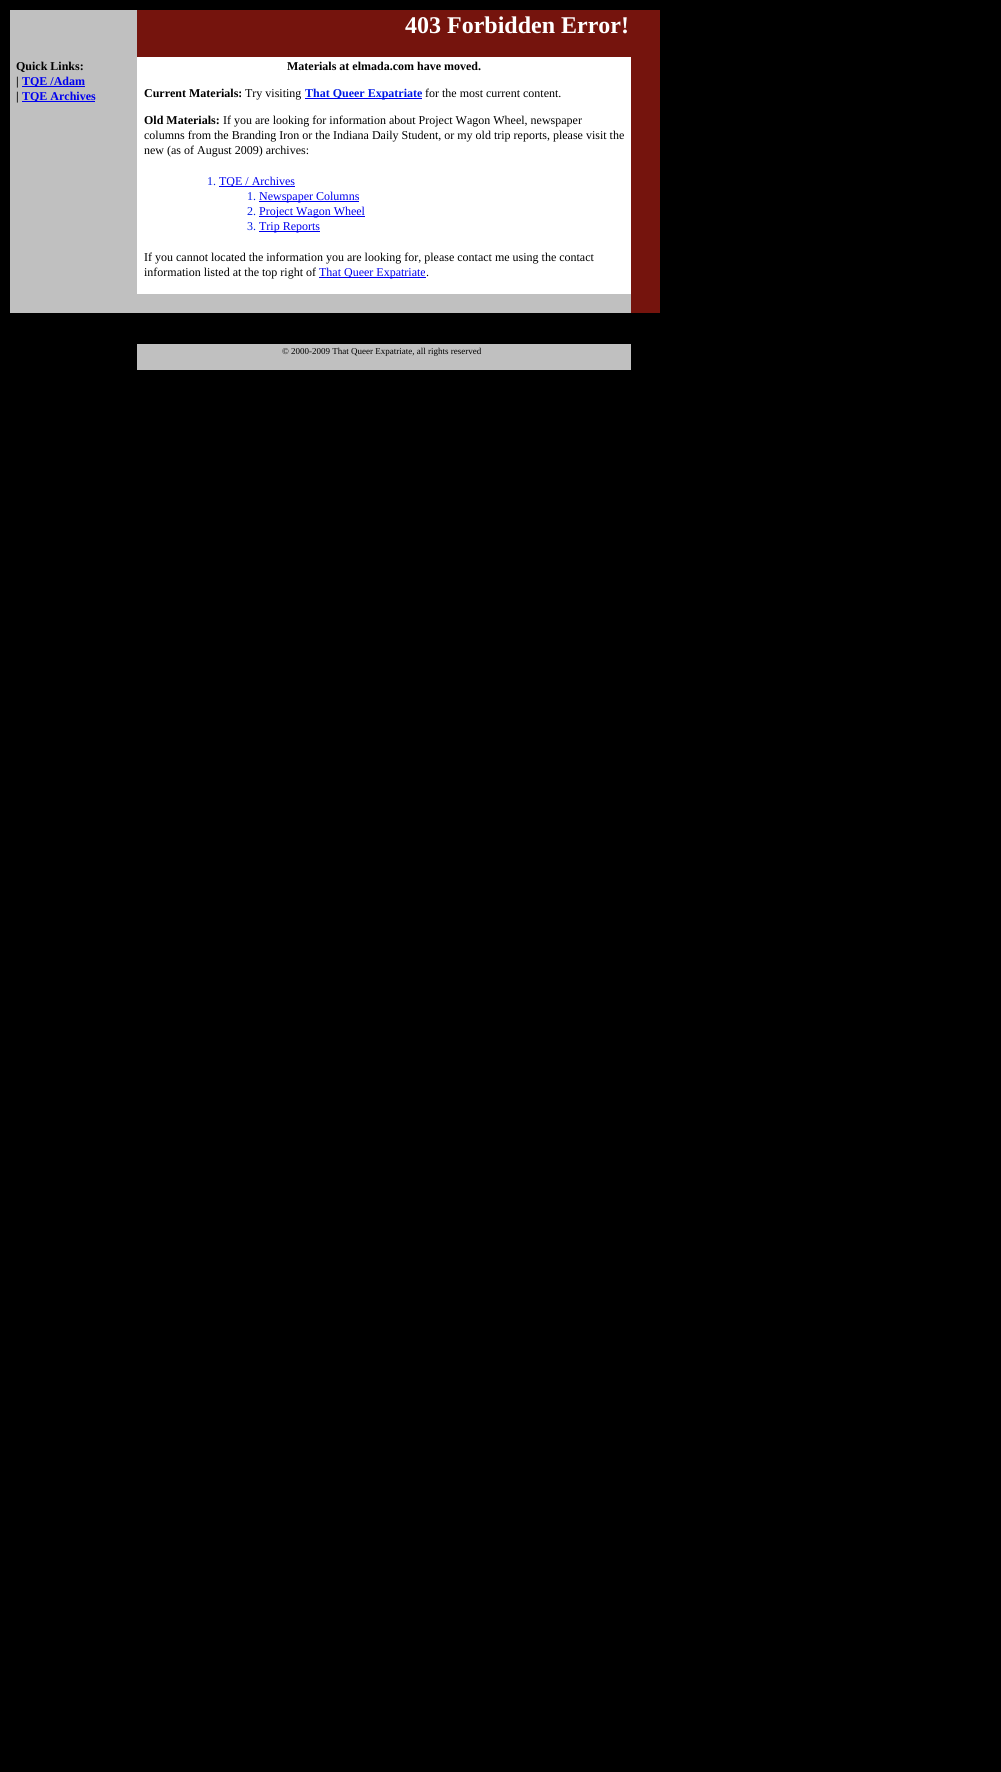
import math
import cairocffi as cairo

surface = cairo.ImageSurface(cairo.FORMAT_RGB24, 1001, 1772)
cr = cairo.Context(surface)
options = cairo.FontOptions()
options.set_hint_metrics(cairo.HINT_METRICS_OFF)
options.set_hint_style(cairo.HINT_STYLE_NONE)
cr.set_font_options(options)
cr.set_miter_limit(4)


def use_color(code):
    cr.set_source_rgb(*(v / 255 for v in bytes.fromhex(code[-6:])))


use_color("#000000")
cr.paint()
use_color("#c0c0c0")
cr.rectangle(10, 10, 127, 303)
cr.fill()
use_color("#75140d")
cr.rectangle(137, 10, 523, 47)
cr.fill()
cr.select_font_face("Liberation Serif", cairo.FONT_SLANT_NORMAL, cairo.FONT_WEIGHT_BOLD)
cr.set_font_size(24)
use_color("#ffffff")
cr.move_to(405, 33)
cr.show_text("403 Forbidden Error!")
cr.set_font_size(12)
use_color("#000000")
cr.move_to(16, 70)
cr.show_text("Quick Links:")
cr.move_to(16, 85)
cr.show_text("|")
use_color("#0000ee")
cr.rectangle(22, 86, 63, 1)
cr.fill()
cr.move_to(22, 85)
cr.show_text("TQE /Adam")
use_color("#000000")
cr.move_to(16, 100)
cr.show_text("|")
use_color("#0000ee")
cr.rectangle(22, 101, 73, 1)
cr.fill()
cr.move_to(22, 100)
cr.show_text("TQE Archives")
use_color("#ffffff")
cr.rectangle(137, 57, 494, 237)
cr.fill()
use_color("#000000")
cr.move_to(287, 70)
cr.show_text("Materials at elmada.com have moved.")
cr.move_to(144, 97)
cr.show_text("Current Materials:")
cr.select_font_face("Liberation Serif")
cr.move_to(245, 97)
cr.show_text("Try visiting")
use_color("#0000ee")
cr.rectangle(305, 98, 117, 1)
cr.fill()
cr.select_font_face("Liberation Serif", cairo.FONT_SLANT_NORMAL, cairo.FONT_WEIGHT_BOLD)
use_color("#0019e4")
cr.move_to(305, 97)
cr.show_text("That Queer Expatriate")
cr.select_font_face("Liberation Serif")
use_color("#000000")
cr.move_to(425, 97)
cr.show_text("for the most current content.")
cr.select_font_face("Liberation Serif", cairo.FONT_SLANT_NORMAL, cairo.FONT_WEIGHT_BOLD)
cr.move_to(144, 124)
cr.show_text("Old Materials:")
cr.select_font_face("Liberation Serif")
cr.move_to(223, 124)
cr.show_text("If you are looking for information about Project Wagon Wheel, newspaper")
cr.move_to(144, 139)
cr.show_text("columns from the Branding Iron or the Indiana Daily Student, or my old trip reports, please visit the")
cr.move_to(144, 154)
cr.show_text("new (as of August 2009) archives:")
use_color("#0019e4")
cr.move_to(207, 185)
cr.show_text("1.")
use_color("#0000ee")
cr.rectangle(219, 186, 76, 1)
cr.fill()
cr.move_to(219, 185)
cr.show_text("TQE / Archives")
use_color("#0019e4")
cr.move_to(247, 200)
cr.show_text("1.")
use_color("#0000ee")
cr.rectangle(259, 201, 100, 1)
cr.fill()
cr.move_to(259, 200)
cr.show_text("Newspaper Columns")
use_color("#0019e4")
cr.move_to(247, 215)
cr.show_text("2.")
use_color("#0000ee")
cr.rectangle(259, 216, 106, 1)
cr.fill()
cr.move_to(259, 215)
cr.show_text("Project Wagon Wheel")
use_color("#0019e4")
cr.move_to(247, 230)
cr.show_text("3.")
use_color("#0000ee")
cr.rectangle(259, 231, 61, 1)
cr.fill()
cr.move_to(259, 230)
cr.show_text("Trip Reports")
use_color("#000000")
cr.move_to(144, 261)
cr.show_text("If you cannot located the information you are looking for, please contact me using the contact")
cr.move_to(144, 276)
cr.show_text("information listed at the top right of")
use_color("#0000ee")
cr.rectangle(319, 277, 107, 1)
cr.fill()
cr.move_to(319, 276)
cr.show_text("That Queer Expatriate")
use_color("#000000")
cr.move_to(426, 276)
cr.show_text(".")
use_color("#75140d")
cr.rectangle(631, 57, 29, 256)
cr.fill()
use_color("#c0c0c0")
cr.rectangle(137, 294, 494, 19)
cr.fill()
cr.rectangle(137, 344, 494, 26)
cr.fill()
cr.set_font_size(9)
use_color("#000000")
cr.move_to(282, 354)
cr.show_text("© 2000-2009 That Queer Expatriate, all rights reserved")
surface.write_to_png("result.png")
